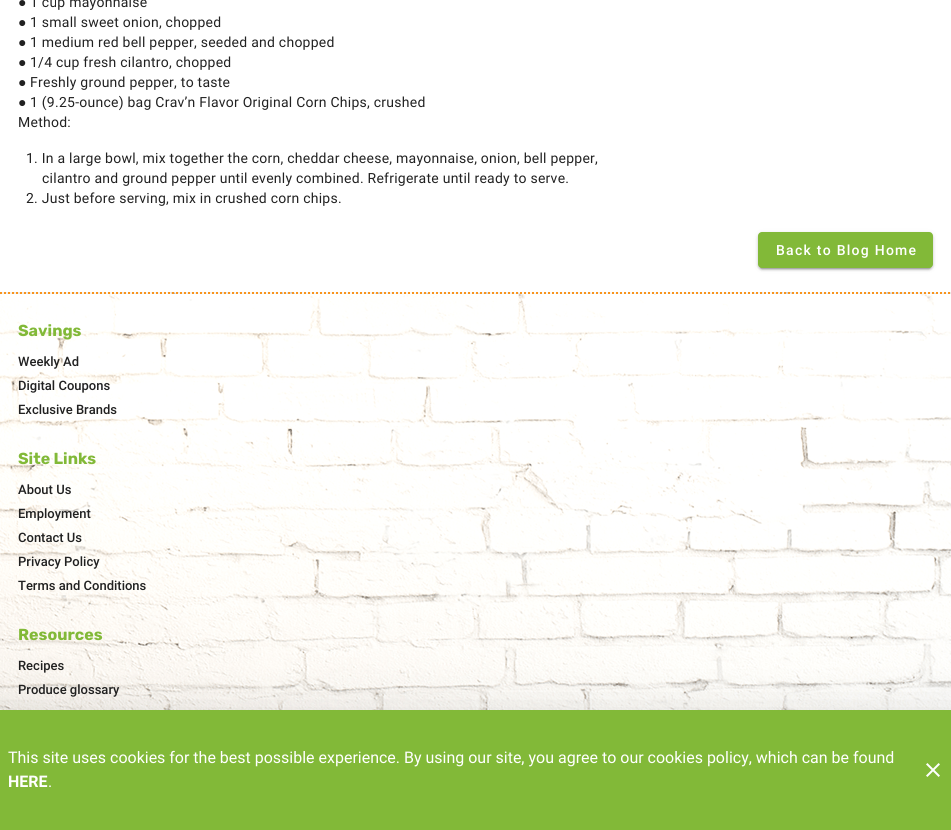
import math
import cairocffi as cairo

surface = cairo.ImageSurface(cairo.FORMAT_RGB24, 951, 830)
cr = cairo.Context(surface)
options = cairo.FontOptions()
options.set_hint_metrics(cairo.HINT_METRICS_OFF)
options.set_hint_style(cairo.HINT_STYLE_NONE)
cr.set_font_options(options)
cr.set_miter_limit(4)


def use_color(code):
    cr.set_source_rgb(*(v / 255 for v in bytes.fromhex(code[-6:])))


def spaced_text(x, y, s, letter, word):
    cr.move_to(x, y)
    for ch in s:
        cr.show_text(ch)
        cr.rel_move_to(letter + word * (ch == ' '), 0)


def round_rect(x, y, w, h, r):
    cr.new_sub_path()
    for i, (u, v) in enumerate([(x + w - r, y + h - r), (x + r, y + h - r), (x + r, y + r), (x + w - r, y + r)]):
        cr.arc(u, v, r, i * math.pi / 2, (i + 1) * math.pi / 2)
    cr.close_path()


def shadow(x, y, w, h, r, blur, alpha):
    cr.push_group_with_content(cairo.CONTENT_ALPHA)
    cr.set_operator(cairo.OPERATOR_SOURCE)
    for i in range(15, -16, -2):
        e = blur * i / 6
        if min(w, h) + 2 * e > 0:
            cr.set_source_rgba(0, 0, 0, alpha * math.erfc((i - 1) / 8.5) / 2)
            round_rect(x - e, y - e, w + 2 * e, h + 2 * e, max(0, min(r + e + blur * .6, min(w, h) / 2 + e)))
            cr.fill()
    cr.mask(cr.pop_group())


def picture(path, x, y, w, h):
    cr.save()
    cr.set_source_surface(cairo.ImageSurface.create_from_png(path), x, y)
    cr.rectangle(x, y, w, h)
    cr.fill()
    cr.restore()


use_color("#ffffff")
cr.paint()
cr.select_font_face("Liberation Sans")
cr.set_font_size(14)
use_color("#212121")
spaced_text(18, 7, "●", 0.25, 0)
cr.select_font_face("Roboto")
spaced_text(30, 7, "1 cup mayonnaise", 0.25, 0)
cr.select_font_face("Liberation Sans")
spaced_text(18, 27, "●", 0.25, 0)
cr.select_font_face("Roboto")
spaced_text(30, 27, "1 small sweet onion, chopped", 0.25, 0)
cr.select_font_face("Liberation Sans")
spaced_text(18, 47, "●", 0.25, 0)
cr.select_font_face("Roboto")
spaced_text(30, 47, "1 medium red bell pepper, seeded and chopped", 0.25, 0)
cr.select_font_face("Liberation Sans")
spaced_text(18, 67, "●", 0.25, 0)
cr.select_font_face("Roboto")
spaced_text(30, 67, "1/4 cup fresh cilantro, chopped", 0.25, 0)
cr.select_font_face("Liberation Sans")
spaced_text(18, 87, "●", 0.25, 0)
cr.select_font_face("Roboto")
spaced_text(30, 87, "Freshly ground pepper, to taste", 0.25, 0)
cr.select_font_face("Liberation Sans")
spaced_text(18, 107, "●", 0.25, 0)
cr.select_font_face("Roboto")
spaced_text(30, 107, "1 (9.25-ounce) bag Crav’n Flavor Original Corn Chips, crushed", 0.25, 0)
spaced_text(18, 127, "Method:", 0.25, 0)
spaced_text(26, 163, "1. In a large bowl, mix together the corn, cheddar cheese, mayonnaise, onion, bell pepper,", 0.25, 0)
spaced_text(42, 183, "cilantro and ground pepper until evenly combined. Refrigerate until ready to serve.", 0.25, 0)
spaced_text(26, 203, "2. Just before serving, mix in crushed corn chips.", 0.25, 0)
use_color("#000000")
shadow(758, 233, 175, 36, 4, 2.5, 0.12)
shadow(758, 234, 175, 36, 4, 1, 0.14)
shadow(760, 237, 171, 32, 2, 0.5, 0.2)
use_color("#82b938")
round_rect(758, 232, 175, 36, 4)
cr.fill()
cr.select_font_face("Roboto Medium")
use_color("#ffffff")
spaced_text(776, 255, "Back to Blog Home", 1.25, 0)
picture("img1.png", 0, 292, 951, 418)
cr.new_path()
cr.move_to(0, 293)
cr.line_to(951, 293)
use_color("#f8941e")
cr.set_dash([2, 2])
cr.stroke()
cr.select_font_face("Rubik Light")
cr.set_font_size(16)
use_color("#82b938")
cr.move_to(18, 336)
cr.show_text("Savings")
cr.select_font_face("Roboto Medium")
cr.set_font_size(13)
use_color("#212121")
cr.move_to(18, 366)
cr.show_text("Weekly Ad")
cr.move_to(18, 390)
cr.show_text("Digital Coupons")
cr.move_to(18, 414)
cr.show_text("Exclusive Brands")
cr.select_font_face("Rubik Light")
cr.set_font_size(16)
use_color("#82b938")
cr.move_to(18, 464)
cr.show_text("Site Links")
cr.select_font_face("Roboto Medium")
cr.set_font_size(13)
use_color("#212121")
cr.move_to(18, 494)
cr.show_text("About Us")
cr.move_to(18, 518)
cr.show_text("Employment")
cr.move_to(18, 542)
cr.show_text("Contact Us")
cr.move_to(18, 566)
cr.show_text("Privacy Policy")
cr.move_to(18, 590)
cr.show_text("Terms and Conditions")
cr.select_font_face("Rubik Light")
cr.set_font_size(16)
use_color("#82b938")
cr.move_to(18, 640)
cr.show_text("Resources")
cr.select_font_face("Roboto Medium")
cr.set_font_size(13)
use_color("#212121")
cr.move_to(18, 670)
cr.show_text("Recipes")
cr.move_to(18, 694)
cr.show_text("Produce glossary")
use_color("#000000")
shadow(-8, 711, 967, 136, 0, 23, 0.12)
use_color("#82b938")
cr.rectangle(0, 710, 951, 120)
cr.fill()
cr.select_font_face("Roboto")
cr.set_font_size(16)
use_color("#ffffff")
cr.move_to(8, 763)
cr.show_text("This site uses cookies for the best possible experience. By using our site, you agree to our cookies policy, which can be found")
cr.select_font_face("Roboto", cairo.FONT_SLANT_NORMAL, cairo.FONT_WEIGHT_BOLD)
cr.move_to(8, 787)
cr.show_text("HERE")
cr.select_font_face("Roboto")
cr.move_to(48, 787)
cr.show_text(".")
picture("img2.png", 926, 763, 14, 14)
surface.write_to_png("result.png")
